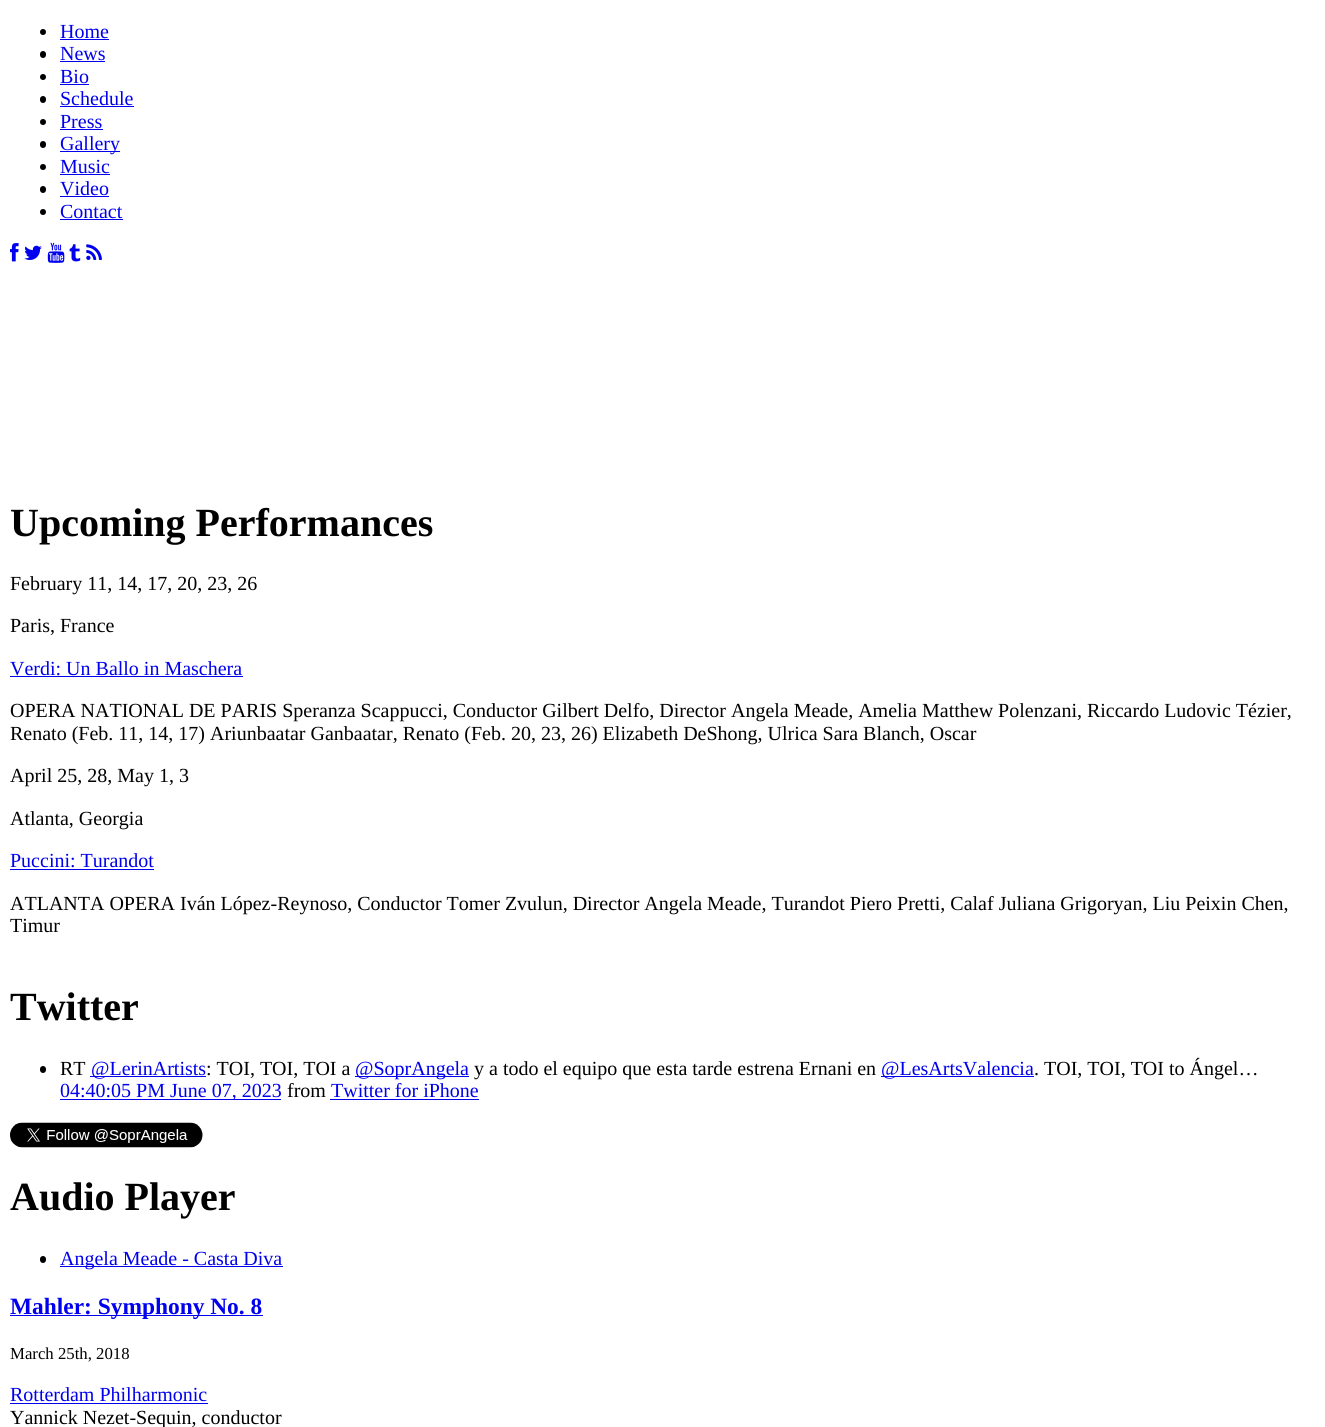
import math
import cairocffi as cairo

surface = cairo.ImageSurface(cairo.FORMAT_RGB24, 1325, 1427)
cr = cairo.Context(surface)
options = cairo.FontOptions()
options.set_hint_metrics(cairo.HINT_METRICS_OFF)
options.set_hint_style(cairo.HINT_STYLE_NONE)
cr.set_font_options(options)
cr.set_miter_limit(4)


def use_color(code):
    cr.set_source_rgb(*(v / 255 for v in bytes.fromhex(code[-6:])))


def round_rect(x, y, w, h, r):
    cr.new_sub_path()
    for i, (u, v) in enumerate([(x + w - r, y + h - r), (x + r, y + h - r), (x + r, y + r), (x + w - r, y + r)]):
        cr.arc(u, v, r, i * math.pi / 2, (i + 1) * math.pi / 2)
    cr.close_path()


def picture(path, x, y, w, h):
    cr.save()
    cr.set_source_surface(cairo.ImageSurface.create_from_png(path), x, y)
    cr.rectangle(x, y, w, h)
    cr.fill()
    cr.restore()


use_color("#ffffff")
cr.paint()
use_color("#000000")
cr.arc(43, 32, 3, 0, 2 * math.pi)
cr.fill()
cr.select_font_face("Liberation Serif")
cr.set_font_size(20)
use_color("#0000ee")
cr.move_to(60, 38)
cr.show_text("Home")
cr.rectangle(60, 39, 49, 1)
cr.fill()
use_color("#000000")
round_rect(40, 51, 6, 7, 3)
cr.fill()
use_color("#0000ee")
cr.move_to(60, 60)
cr.show_text("News")
cr.rectangle(60, 61, 45, 1)
cr.fill()
use_color("#000000")
cr.arc(43, 77, 3, 0, 2 * math.pi)
cr.fill()
use_color("#0000ee")
cr.move_to(60, 83)
cr.show_text("Bio")
cr.rectangle(60, 84, 29, 1)
cr.fill()
use_color("#000000")
round_rect(40, 96, 6, 7, 3)
cr.fill()
use_color("#0000ee")
cr.move_to(60, 105)
cr.show_text("Schedule")
cr.rectangle(60, 106, 74, 1)
cr.fill()
use_color("#000000")
cr.arc(43, 122, 3, 0, 2 * math.pi)
cr.fill()
use_color("#0000ee")
cr.move_to(60, 128)
cr.show_text("Press")
cr.rectangle(60, 129, 43, 1)
cr.fill()
use_color("#000000")
round_rect(40, 141, 6, 7, 3)
cr.fill()
use_color("#0000ee")
cr.rectangle(60, 151, 60, 1)
cr.fill()
cr.move_to(60, 150)
cr.show_text("Gallery")
use_color("#000000")
cr.new_path()
cr.arc(43, 167, 3, 0, 2 * math.pi)
cr.fill()
use_color("#0000ee")
cr.move_to(60, 173)
cr.show_text("Music")
cr.rectangle(60, 174, 50, 1)
cr.fill()
use_color("#000000")
round_rect(40, 186, 6, 7, 3)
cr.fill()
use_color("#0000ee")
cr.move_to(60, 195)
cr.show_text("Video")
cr.rectangle(60, 196, 49, 1)
cr.fill()
use_color("#000000")
cr.arc(43, 212, 3, 0, 2 * math.pi)
cr.fill()
use_color("#0000ee")
cr.move_to(60, 218)
cr.show_text("Contact")
cr.rectangle(60, 219, 63, 1)
cr.fill()
picture("img1.png", 10, 243, 9, 19)
picture("img2.png", 24, 245, 18, 15)
picture("img3.png", 47, 242, 18, 21)
picture("img4.png", 69, 244, 12, 18)
picture("img5.png", 86, 244, 16, 16)
cr.select_font_face("Liberation Serif", cairo.FONT_SLANT_NORMAL, cairo.FONT_WEIGHT_BOLD)
cr.set_font_size(40)
use_color("#000000")
cr.move_to(10, 536)
cr.show_text("Upcoming Performances")
cr.select_font_face("Liberation Serif")
cr.set_font_size(20)
cr.move_to(10, 590)
cr.show_text("February 11, 14, 17, 20, 23, 26")
cr.move_to(10, 632)
cr.show_text("Paris, France")
use_color("#0000ee")
cr.move_to(10, 675)
cr.show_text("Verdi: Un Ballo in Maschera")
cr.rectangle(10, 676, 233, 1)
cr.fill()
use_color("#000000")
cr.move_to(10, 717)
cr.show_text("OPERA NATIONAL DE PARIS Speranza Scappucci, Conductor Gilbert Delfo, Director Angela Meade, Amelia Matthew Polenzani, Riccardo Ludovic Tézier,")
cr.move_to(10, 740)
cr.show_text("Renato (Feb. 11, 14, 17) Ariunbaatar Ganbaatar, Renato (Feb. 20, 23, 26) Elizabeth DeShong, Ulrica Sara Blanch, Oscar")
cr.move_to(10, 782)
cr.show_text("April 25, 28, May 1, 3")
cr.move_to(10, 825)
cr.show_text("Atlanta, Georgia")
use_color("#0000ee")
cr.move_to(10, 867)
cr.show_text("Puccini: Turandot")
cr.rectangle(10, 869, 144, 1)
cr.fill()
use_color("#000000")
cr.move_to(10, 910)
cr.show_text("ATLANTA OPERA Iván López-Reynoso, Conductor Tomer Zvulun, Director Angela Meade, Turandot Piero Pretti, Calaf Juliana Grigoryan, Liu Peixin Chen,")
cr.move_to(10, 932)
cr.show_text("Timur")
cr.select_font_face("Liberation Serif", cairo.FONT_SLANT_NORMAL, cairo.FONT_WEIGHT_BOLD)
cr.set_font_size(40)
cr.move_to(10, 1020)
cr.show_text("Twitter")
round_rect(40, 1066, 6, 7, 3)
cr.fill()
cr.select_font_face("Liberation Serif")
cr.set_font_size(20)
cr.move_to(60, 1075)
cr.show_text("RT")
use_color("#0000ee")
cr.rectangle(90, 1076, 116, 1)
cr.fill()
cr.move_to(91, 1075)
cr.show_text("@LerinArtists")
use_color("#000000")
cr.move_to(206, 1075)
cr.show_text(": TOI, TOI, TOI a")
use_color("#0000ee")
cr.rectangle(355, 1076, 114, 1)
cr.fill()
cr.move_to(355, 1075)
cr.show_text("@SoprAngela")
use_color("#000000")
cr.move_to(474, 1075)
cr.show_text("y a todo el equipo que esta tarde estrena Ernani en")
use_color("#0000ee")
cr.rectangle(881, 1076, 153, 1)
cr.fill()
cr.move_to(881, 1075)
cr.show_text("@LesArtsValencia")
use_color("#000000")
cr.move_to(1034, 1075)
cr.show_text(". TOI, TOI, TOI to Ángel…")
use_color("#0000ee")
cr.rectangle(60, 1099, 221, 1)
cr.fill()
cr.move_to(60, 1097)
cr.show_text("04:40:05 PM June 07, 2023")
use_color("#000000")
cr.move_to(287, 1097)
cr.show_text("from")
use_color("#0000ee")
cr.move_to(331, 1097)
cr.show_text("Twitter for iPhone")
cr.rectangle(330, 1099, 149, 1)
cr.fill()
picture("img6.png", 10, 1122, 193, 26)
cr.select_font_face("Liberation Serif", cairo.FONT_SLANT_NORMAL, cairo.FONT_WEIGHT_BOLD)
cr.set_font_size(40)
use_color("#000000")
cr.move_to(10, 1210)
cr.show_text("Audio Player")
round_rect(40, 1256, 6, 7, 3)
cr.fill()
use_color("#0000ee")
cr.rectangle(60, 1266, 223, 1)
cr.fill()
cr.select_font_face("Liberation Serif")
cr.set_font_size(20)
cr.move_to(60, 1265)
cr.show_text("Angela Meade - Casta Diva")
cr.rectangle(10, 1315, 253, 1)
cr.fill()
cr.select_font_face("Liberation Serif", cairo.FONT_SLANT_NORMAL, cairo.FONT_WEIGHT_BOLD)
cr.set_font_size(23.4)
cr.move_to(10, 1314)
cr.show_text("Mahler: Symphony No. 8")
cr.select_font_face("Liberation Serif")
cr.set_font_size(16.75)
use_color("#000000")
cr.move_to(10, 1359)
cr.show_text("March 25th, 2018")
cr.set_font_size(20)
use_color("#0000ee")
cr.move_to(10, 1401)
cr.show_text("Rotterdam Philharmonic")
cr.rectangle(10, 1403, 198, 1)
cr.fill()
use_color("#000000")
cr.move_to(10, 1424)
cr.show_text("Yannick Nezet-Sequin, conductor")
surface.write_to_png("result.png")
